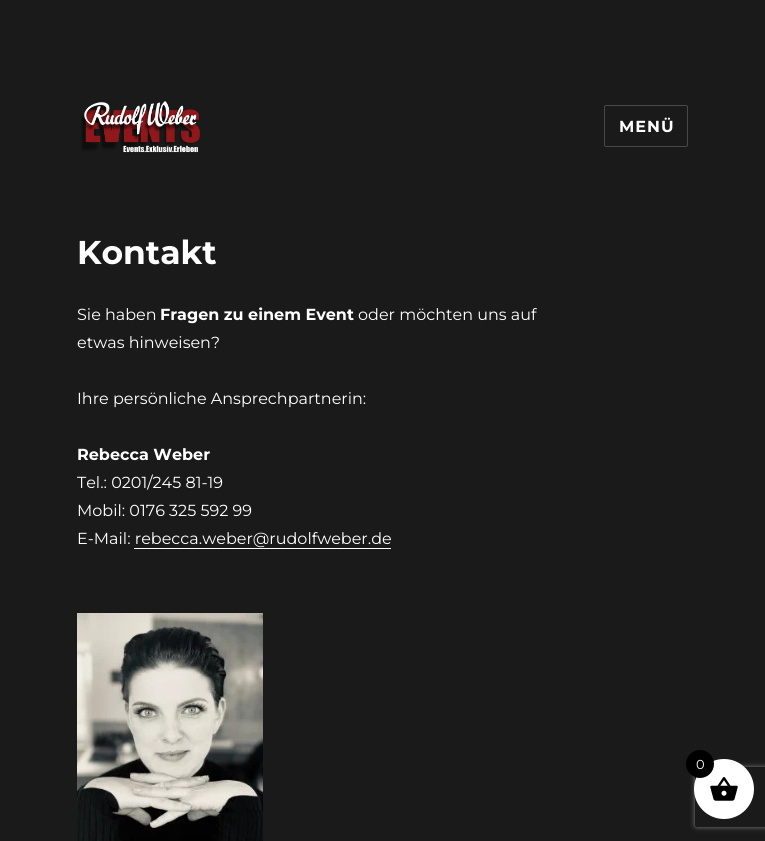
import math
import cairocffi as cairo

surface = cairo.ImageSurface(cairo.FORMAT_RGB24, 765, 841)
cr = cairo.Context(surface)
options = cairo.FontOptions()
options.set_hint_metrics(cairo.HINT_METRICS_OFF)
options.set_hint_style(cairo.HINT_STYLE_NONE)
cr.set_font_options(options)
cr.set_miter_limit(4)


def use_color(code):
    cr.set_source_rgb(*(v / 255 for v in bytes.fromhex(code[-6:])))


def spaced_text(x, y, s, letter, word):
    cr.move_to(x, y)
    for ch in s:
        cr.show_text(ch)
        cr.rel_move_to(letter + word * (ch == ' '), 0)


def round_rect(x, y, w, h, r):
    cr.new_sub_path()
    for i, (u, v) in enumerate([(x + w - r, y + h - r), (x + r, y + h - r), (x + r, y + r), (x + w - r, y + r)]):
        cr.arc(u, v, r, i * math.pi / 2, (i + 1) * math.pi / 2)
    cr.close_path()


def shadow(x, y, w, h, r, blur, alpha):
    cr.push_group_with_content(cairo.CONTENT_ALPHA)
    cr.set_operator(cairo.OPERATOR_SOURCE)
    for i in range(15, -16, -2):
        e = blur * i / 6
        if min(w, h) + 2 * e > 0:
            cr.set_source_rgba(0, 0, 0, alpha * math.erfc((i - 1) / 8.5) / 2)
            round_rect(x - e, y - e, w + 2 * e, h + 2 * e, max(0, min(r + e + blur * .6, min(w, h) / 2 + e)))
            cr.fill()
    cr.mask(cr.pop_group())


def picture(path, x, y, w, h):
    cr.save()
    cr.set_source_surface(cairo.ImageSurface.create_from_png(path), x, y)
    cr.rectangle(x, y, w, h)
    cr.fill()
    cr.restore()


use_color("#1a1a1a")
cr.paint()
picture("img1.png", 81, 101, 119, 52)
round_rect(604.5, 105.5, 83, 41, 1.5)
use_color("#484848")
cr.set_line_width(1)
cr.stroke()
cr.select_font_face("Montserrat Thin")
cr.set_font_size(16)
use_color("#ffffff")
spaced_text(619, 132, "MENÜ", 1, 0)
cr.set_font_size(33)
cr.move_to(77, 264)
cr.show_text("Kontakt")
cr.select_font_face("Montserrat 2 Thin")
cr.set_font_size(16)
cr.move_to(77, 320)
cr.show_text("Sie haben")
cr.select_font_face("Montserrat Thin")
cr.move_to(160, 320)
cr.show_text("Fragen zu einem Event")
cr.select_font_face("Montserrat 2 Thin")
cr.move_to(358, 320)
cr.show_text("oder möchten uns auf")
cr.move_to(77, 348)
cr.show_text("etwas hinweisen?")
cr.move_to(77, 404)
cr.show_text("Ihre persönliche Ansprechpartnerin:")
cr.select_font_face("Montserrat Thin")
cr.move_to(77, 460)
cr.show_text("Rebecca Weber")
cr.select_font_face("Montserrat 2 Thin")
cr.move_to(77, 488)
cr.show_text("Tel.: 0201/245 81-19")
cr.move_to(77, 516)
cr.show_text("Mobil: 0176 325 592 99")
cr.move_to(77, 544)
cr.show_text("E-Mail: rebecca.weber@rudolfweber.de")
cr.rectangle(134, 548, 257, 1)
cr.fill()
picture("img2.png", 77, 613, 186, 228)
cr.save()
cr.set_fill_rule(cairo.FILL_RULE_EVEN_ODD)
cr.new_path()
cr.move_to(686, 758)
cr.line_to(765, 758)
cr.line_to(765, 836)
cr.line_to(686, 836)
cr.close_path()
cr.move_to(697, 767)
cr.line_to(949, 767)
cr.curve_to(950, 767, 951, 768, 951, 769)
cr.line_to(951, 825)
cr.curve_to(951, 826, 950, 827, 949, 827)
cr.line_to(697, 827)
cr.curve_to(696, 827, 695, 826, 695, 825)
cr.line_to(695, 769)
cr.curve_to(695, 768, 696, 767, 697, 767)
cr.close_path()
cr.clip()
use_color("#808080")
shadow(695, 767, 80, 60, 2, 2.5, 1)
cr.restore()
cr.arc(724, 789, 30, 0, 2 * math.pi)
cr.fill()
picture("img3.png", 710, 777, 28, 24)
use_color("#000000")
cr.arc(700, 764, 14, 0, 2 * math.pi)
cr.fill()
cr.set_font_size(13)
use_color("#ffffff")
cr.move_to(696, 769)
cr.show_text("0")
surface.write_to_png("result.png")
